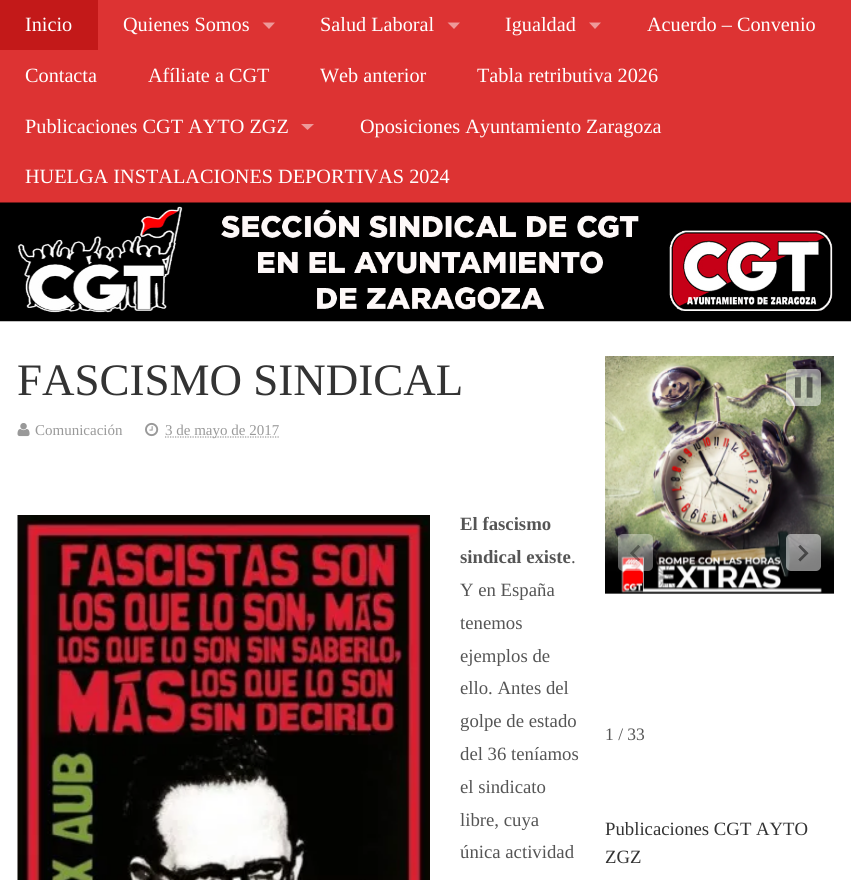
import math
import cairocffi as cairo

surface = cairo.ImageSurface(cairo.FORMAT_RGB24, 851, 880)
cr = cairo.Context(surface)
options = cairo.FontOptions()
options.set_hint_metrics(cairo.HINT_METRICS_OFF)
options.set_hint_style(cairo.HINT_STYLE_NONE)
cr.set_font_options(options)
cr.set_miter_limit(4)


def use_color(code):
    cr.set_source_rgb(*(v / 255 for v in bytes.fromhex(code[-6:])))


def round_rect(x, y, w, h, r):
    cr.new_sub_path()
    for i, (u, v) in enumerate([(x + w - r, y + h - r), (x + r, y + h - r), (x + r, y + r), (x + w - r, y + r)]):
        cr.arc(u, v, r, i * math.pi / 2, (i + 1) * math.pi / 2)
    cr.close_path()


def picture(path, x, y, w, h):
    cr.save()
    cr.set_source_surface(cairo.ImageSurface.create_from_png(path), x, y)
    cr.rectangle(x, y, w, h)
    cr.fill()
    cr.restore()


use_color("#ffffff")
cr.paint()
use_color("#dd3333")
cr.rectangle(0, 0, 851, 203)
cr.fill()
use_color("#c31919")
cr.rectangle(0, 0, 98, 50)
cr.fill()
cr.select_font_face("Liberation Serif")
cr.set_font_size(20.25)
use_color("#ffffff")
cr.move_to(25, 31)
cr.show_text("Inicio")
cr.move_to(123, 31)
cr.show_text("Quienes Somos")
use_color("#ee9999")
cr.new_path()
cr.move_to(262.5, 22.5)
cr.line_to(275, 22.5)
cr.line_to(269, 29)
cr.close_path()
cr.fill()
use_color("#ffffff")
cr.move_to(320, 31)
cr.show_text("Salud Laboral")
use_color("#ee9999")
cr.new_path()
cr.move_to(447.5, 22.5)
cr.line_to(460, 22.5)
cr.line_to(454, 29)
cr.close_path()
cr.fill()
use_color("#ffffff")
cr.move_to(505, 31)
cr.show_text("Igualdad")
use_color("#ee9999")
cr.new_path()
cr.move_to(589, 22.5)
cr.line_to(601, 22.5)
cr.line_to(595, 29)
cr.close_path()
cr.fill()
use_color("#ffffff")
cr.move_to(647, 31)
cr.show_text("Acuerdo – Convenio")
cr.move_to(25, 82)
cr.show_text("Contacta")
cr.move_to(148, 82)
cr.show_text("Afíliate a CGT")
cr.move_to(320, 82)
cr.show_text("Web anterior")
cr.move_to(477, 82)
cr.show_text("Tabla retributiva 2026")
cr.move_to(25, 133)
cr.show_text("Publicaciones CGT AYTO ZGZ")
use_color("#ee9999")
cr.new_path()
cr.move_to(301, 124)
cr.line_to(314, 124)
cr.line_to(307.5, 130)
cr.close_path()
cr.fill()
use_color("#ffffff")
cr.move_to(360, 133)
cr.show_text("Oposiciones Ayuntamiento Zaragoza")
cr.move_to(25, 183)
cr.show_text("HUELGA INSTALACIONES DEPORTIVAS 2024")
picture("img1.png", 0, 202, 851, 120)
cr.set_font_size(45)
use_color("#333333")
cr.move_to(17, 395)
cr.show_text("FASCISMO SINDICAL")
picture("img2.png", 17, 423, 13, 14)
cr.set_font_size(15)
use_color("#999999")
cr.move_to(35, 435)
cr.show_text("Comunicación")
picture("img3.png", 145, 422, 14, 15)
cr.new_path()
cr.move_to(165, 437)
cr.line_to(279, 437)
cr.set_line_width(1.2)
cr.set_dash([1.25, 1.25])
cr.stroke()
cr.move_to(165, 435)
cr.show_text("3 de mayo de 2017")
picture("img4.png", 17, 515, 413, 365)
cr.select_font_face("Liberation Serif", cairo.FONT_SLANT_NORMAL, cairo.FONT_WEIGHT_BOLD)
cr.set_font_size(18.75)
use_color("#555555")
cr.move_to(460, 530)
cr.show_text("El fascismo")
cr.move_to(460, 563)
cr.show_text("sindical existe")
cr.select_font_face("Liberation Serif")
cr.move_to(571, 563)
cr.show_text(".")
cr.move_to(460, 596)
cr.show_text("Y en España")
cr.move_to(460, 629)
cr.show_text("tenemos")
cr.move_to(460, 662)
cr.show_text("ejemplos de")
cr.move_to(460, 694)
cr.show_text("ello. Antes del")
cr.move_to(460, 727)
cr.show_text("golpe de estado")
cr.move_to(460, 760)
cr.show_text("del 36 teníamos")
cr.move_to(460, 793)
cr.show_text("el sindicato")
cr.move_to(460, 826)
cr.show_text("libre, cuya")
cr.move_to(460, 858)
cr.show_text("única actividad")
picture("img5.png", 605, 356, 229, 238)
cr.set_source_rgba(1, 1, 1, 0.5)
round_rect(786, 369, 35, 37, 5)
cr.fill()
picture("img6.png", 795, 377, 18, 21)
cr.set_source_rgba(1, 1, 1, 0.35)
round_rect(618, 534, 35, 37, 5)
cr.fill()
picture("img7.png", 630, 545, 10, 17)
cr.set_source_rgba(1, 1, 1, 0.5)
round_rect(786, 534, 35, 37, 5)
cr.fill()
picture("img8.png", 798, 545, 11, 17)
cr.set_font_size(17.5)
use_color("#555555")
cr.move_to(605, 740)
cr.show_text("1 / 33")
cr.set_font_size(18.75)
use_color("#333333")
cr.move_to(605, 835)
cr.show_text("Publicaciones CGT AYTO")
cr.move_to(605, 863)
cr.show_text("ZGZ")
surface.write_to_png("result.png")
